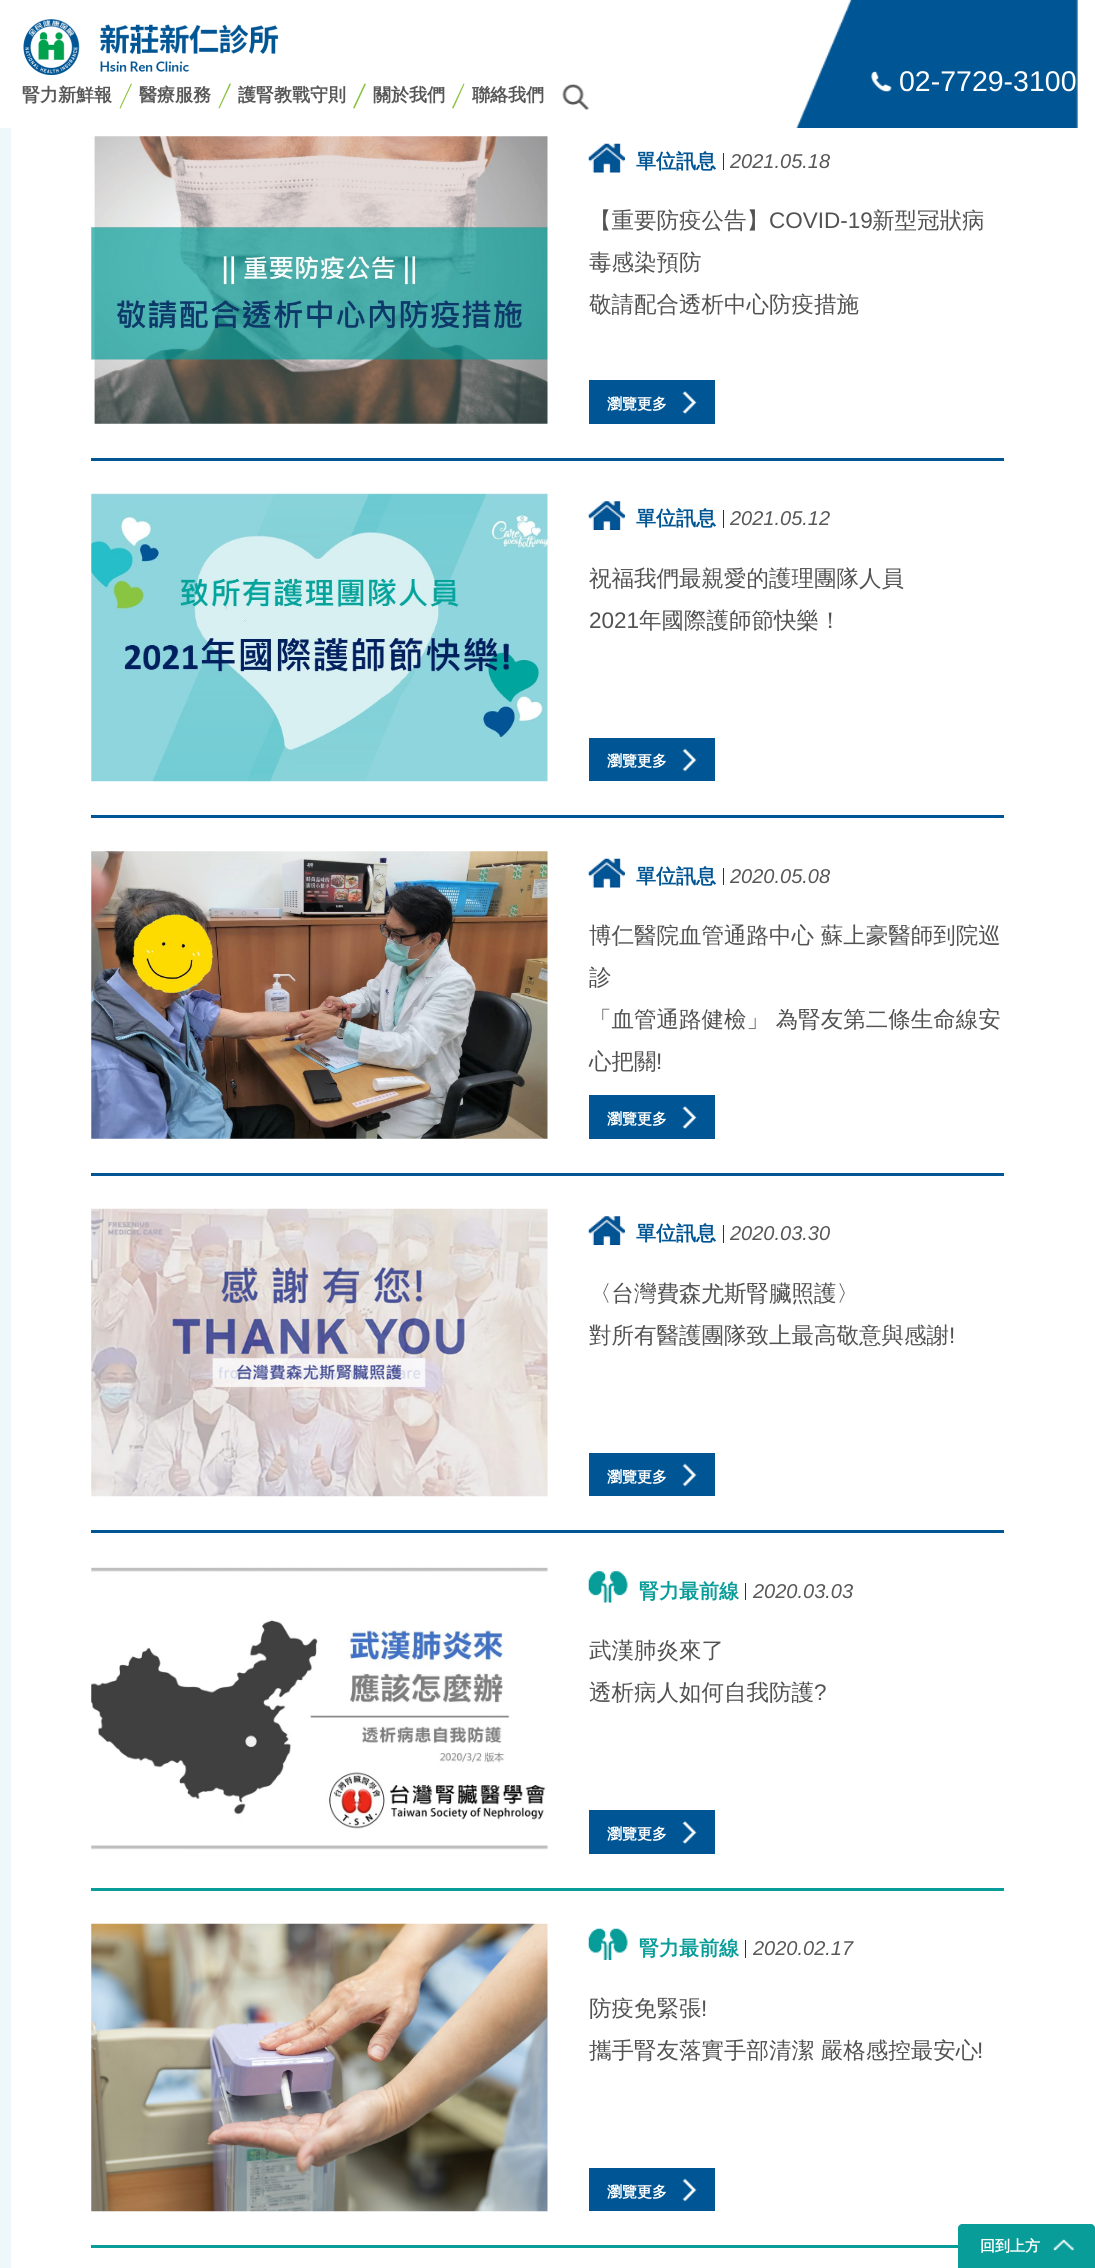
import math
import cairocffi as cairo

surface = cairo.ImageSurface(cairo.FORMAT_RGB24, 1095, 2268)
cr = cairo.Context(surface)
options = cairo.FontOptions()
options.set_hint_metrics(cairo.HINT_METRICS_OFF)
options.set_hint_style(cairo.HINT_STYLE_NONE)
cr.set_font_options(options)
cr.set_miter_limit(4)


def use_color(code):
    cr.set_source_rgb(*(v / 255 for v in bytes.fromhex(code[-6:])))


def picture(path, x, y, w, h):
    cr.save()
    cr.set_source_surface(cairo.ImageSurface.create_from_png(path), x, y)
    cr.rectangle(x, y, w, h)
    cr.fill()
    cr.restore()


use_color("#ffffff")
cr.paint()
picture("img1.png", 23, 19, 256, 56)
cr.select_font_face("WenQuanYi Zen Hei", cairo.FONT_SLANT_NORMAL, cairo.FONT_WEIGHT_BOLD)
cr.set_font_size(18)
use_color("#585757")
cr.move_to(22, 101)
cr.show_text("腎力新鮮報")
use_color("#8ac43f")
cr.new_path()
cr.move_to(132, 84)
cr.line_to(120.5, 108.5)
cr.line_to(119.5, 108)
cr.line_to(131, 83.5)
cr.close_path()
cr.fill()
use_color("#585757")
cr.move_to(139, 101)
cr.show_text("醫療服務")
use_color("#8ac43f")
cr.new_path()
cr.move_to(231, 84)
cr.line_to(219.5, 108.5)
cr.line_to(218.5, 108)
cr.line_to(229.5, 83.5)
cr.close_path()
cr.fill()
use_color("#585757")
cr.move_to(238, 101)
cr.show_text("護腎教戰守則")
use_color("#8ac43f")
cr.new_path()
cr.move_to(366, 84)
cr.line_to(354.5, 108.5)
cr.line_to(353, 108)
cr.line_to(364.5, 83.5)
cr.close_path()
cr.fill()
use_color("#585757")
cr.move_to(373, 101)
cr.show_text("關於我們")
use_color("#8ac43f")
cr.new_path()
cr.move_to(464.5, 84)
cr.line_to(453.5, 108.5)
cr.line_to(452, 108)
cr.line_to(463.5, 83.5)
cr.close_path()
cr.fill()
use_color("#585757")
cr.move_to(472, 101)
cr.show_text("聯絡我們")
picture("img2.png", 562, 83, 28, 27)
picture("img3.png", 796, 0, 282, 128)
picture("img4.png", 871, 71, 21, 21)
cr.select_font_face("Liberation Sans")
cr.set_font_size(28.5)
use_color("#ffffff")
cr.move_to(899, 91)
cr.show_text("02-7729-3100")
use_color("#eef7f9")
cr.rectangle(0, 128, 11, 2140)
cr.fill()
use_color("#005594")
cr.rectangle(91, 458, 913, 3)
cr.fill()
picture("img5.png", 91, 136, 457, 288)
picture("img6.png", 588, 143, 37, 30)
cr.select_font_face("WenQuanYi Zen Hei", cairo.FONT_SLANT_NORMAL, cairo.FONT_WEIGHT_BOLD)
cr.set_font_size(20)
cr.move_to(636, 168)
cr.show_text("單位訊息")
use_color("#2f2f2f")
cr.rectangle(723, 153, 1, 17)
cr.fill()
cr.select_font_face("Liberation Sans", cairo.FONT_SLANT_ITALIC)
use_color("#585757")
cr.move_to(730, 168)
cr.show_text("2021.05.18")
cr.select_font_face("WenQuanYi Zen Hei Medium")
cr.set_font_size(22.5)
use_color("#525252")
cr.move_to(589, 228)
cr.show_text("【重要防疫公告】")
cr.select_font_face("Liberation Sans")
cr.move_to(769, 228)
cr.show_text("COVID-19")
cr.select_font_face("WenQuanYi Zen Hei Medium")
cr.move_to(872, 228)
cr.show_text("新型冠狀病")
cr.move_to(589, 270)
cr.show_text("毒感染預防")
cr.move_to(589, 312)
cr.show_text("敬請配合透析中心防疫措施")
use_color("#005594")
cr.rectangle(589, 380, 126, 44)
cr.fill()
cr.select_font_face("WenQuanYi Zen Hei", cairo.FONT_SLANT_NORMAL, cairo.FONT_WEIGHT_BOLD)
cr.set_font_size(15)
use_color("#ffffff")
cr.move_to(607, 409)
cr.show_text("瀏覽更多")
picture("img7.png", 682, 391, 15, 23)
use_color("#005594")
cr.rectangle(91, 815, 913, 3)
cr.fill()
picture("img8.png", 91, 493, 457, 289)
picture("img9.png", 588, 501, 37, 29)
cr.set_font_size(20)
cr.move_to(636, 525)
cr.show_text("單位訊息")
use_color("#2f2f2f")
cr.rectangle(723, 510, 1, 18)
cr.fill()
cr.select_font_face("Liberation Sans", cairo.FONT_SLANT_ITALIC)
use_color("#585757")
cr.move_to(730, 525)
cr.show_text("2021.05.12")
cr.select_font_face("WenQuanYi Zen Hei Medium")
cr.set_font_size(22.5)
use_color("#525252")
cr.move_to(589, 586)
cr.show_text("祝福我們最親愛的護理團隊人員")
cr.select_font_face("Liberation Sans")
cr.move_to(589, 628)
cr.show_text("2021")
cr.select_font_face("WenQuanYi Zen Hei Medium")
cr.move_to(639, 628)
cr.show_text("年國際護師節快樂！")
use_color("#005594")
cr.rectangle(589, 738, 126, 43)
cr.fill()
cr.select_font_face("WenQuanYi Zen Hei", cairo.FONT_SLANT_NORMAL, cairo.FONT_WEIGHT_BOLD)
cr.set_font_size(15)
use_color("#ffffff")
cr.move_to(607, 766)
cr.show_text("瀏覽更多")
picture("img10.png", 682, 748, 15, 24)
use_color("#005594")
cr.rectangle(91, 1173, 913, 3)
cr.fill()
picture("img11.png", 91, 851, 457, 288)
picture("img6.png", 588, 858, 37, 30)
cr.set_font_size(20)
cr.move_to(636, 883)
cr.show_text("單位訊息")
use_color("#2f2f2f")
cr.rectangle(723, 868, 1, 17)
cr.fill()
cr.select_font_face("Liberation Sans", cairo.FONT_SLANT_ITALIC)
use_color("#585757")
cr.move_to(730, 883)
cr.show_text("2020.05.08")
cr.select_font_face("WenQuanYi Zen Hei Medium")
cr.set_font_size(22.5)
use_color("#525252")
cr.move_to(589, 943)
cr.show_text("博仁醫院血管通路中心 蘇上豪醫師到院巡")
cr.move_to(589, 985)
cr.show_text("診")
cr.move_to(589, 1027)
cr.show_text("「血管通路健檢」 為腎友第二條生命線安")
cr.move_to(589, 1069)
cr.show_text("心把關")
cr.select_font_face("Liberation Sans")
cr.move_to(656, 1069)
cr.show_text("!")
use_color("#005594")
cr.rectangle(589, 1095, 126, 44)
cr.fill()
cr.select_font_face("WenQuanYi Zen Hei", cairo.FONT_SLANT_NORMAL, cairo.FONT_WEIGHT_BOLD)
cr.set_font_size(15)
use_color("#ffffff")
cr.move_to(607, 1124)
cr.show_text("瀏覽更多")
picture("img7.png", 682, 1106, 15, 23)
use_color("#005594")
cr.rectangle(91, 1530, 913, 3)
cr.fill()
picture("img12.png", 91, 1208, 457, 289)
picture("img9.png", 588, 1216, 37, 29)
cr.set_font_size(20)
cr.move_to(636, 1240)
cr.show_text("單位訊息")
use_color("#2f2f2f")
cr.rectangle(723, 1225, 1, 18)
cr.fill()
cr.select_font_face("Liberation Sans", cairo.FONT_SLANT_ITALIC)
use_color("#585757")
cr.move_to(730, 1240)
cr.show_text("2020.03.30")
cr.select_font_face("WenQuanYi Zen Hei Medium")
cr.set_font_size(22.5)
use_color("#525252")
cr.move_to(589, 1301)
cr.show_text("〈台灣費森尤斯腎臟照護〉")
cr.move_to(589, 1343)
cr.show_text("對所有醫護團隊致上最高敬意與感謝")
cr.select_font_face("Liberation Sans")
cr.move_to(949, 1343)
cr.show_text("!")
use_color("#005594")
cr.rectangle(589, 1453, 126, 43)
cr.fill()
cr.select_font_face("WenQuanYi Zen Hei", cairo.FONT_SLANT_NORMAL, cairo.FONT_WEIGHT_BOLD)
cr.set_font_size(15)
use_color("#ffffff")
cr.move_to(607, 1482)
cr.show_text("瀏覽更多")
picture("img13.png", 682, 1463, 15, 24)
use_color("#089d99")
cr.rectangle(91, 1888, 913, 3)
cr.fill()
picture("img14.png", 91, 1567, 457, 283)
picture("img15.png", 588, 1571, 40, 32)
cr.set_font_size(20)
cr.move_to(639, 1598)
cr.show_text("腎力最前線")
use_color("#2f2f2f")
cr.rectangle(745, 1583, 1, 17)
cr.fill()
cr.select_font_face("Liberation Sans", cairo.FONT_SLANT_ITALIC)
use_color("#585757")
cr.move_to(753, 1598)
cr.show_text("2020.03.03")
cr.select_font_face("WenQuanYi Zen Hei Medium")
cr.set_font_size(22.5)
use_color("#525252")
cr.move_to(589, 1658)
cr.show_text("武漢肺炎來了")
cr.move_to(589, 1700)
cr.show_text("透析病人如何自我防護")
cr.select_font_face("Liberation Sans")
cr.move_to(814, 1700)
cr.show_text("?")
use_color("#005594")
cr.rectangle(589, 1810, 126, 44)
cr.fill()
cr.select_font_face("WenQuanYi Zen Hei", cairo.FONT_SLANT_NORMAL, cairo.FONT_WEIGHT_BOLD)
cr.set_font_size(15)
use_color("#ffffff")
cr.move_to(607, 1839)
cr.show_text("瀏覽更多")
picture("img7.png", 682, 1821, 15, 23)
use_color("#089d99")
cr.rectangle(91, 2245, 867, 3)
cr.fill()
picture("img16.png", 91, 1923, 457, 289)
picture("img17.png", 588, 1928, 40, 32)
cr.set_font_size(20)
cr.move_to(639, 1955)
cr.show_text("腎力最前線")
use_color("#2f2f2f")
cr.rectangle(745, 1940, 1, 18)
cr.fill()
cr.select_font_face("Liberation Sans", cairo.FONT_SLANT_ITALIC)
use_color("#585757")
cr.move_to(753, 1955)
cr.show_text("2020.02.17")
cr.select_font_face("WenQuanYi Zen Hei Medium")
cr.set_font_size(22.5)
use_color("#525252")
cr.move_to(589, 2016)
cr.show_text("防疫免緊張")
cr.select_font_face("Liberation Sans")
cr.move_to(701, 2016)
cr.show_text("!")
cr.select_font_face("WenQuanYi Zen Hei Medium")
cr.move_to(589, 2058)
cr.show_text("攜手腎友落實手部清潔 嚴格感控最安心")
cr.select_font_face("Liberation Sans")
cr.move_to(977, 2058)
cr.show_text("!")
use_color("#005594")
cr.rectangle(589, 2168, 126, 43)
cr.fill()
cr.select_font_face("WenQuanYi Zen Hei", cairo.FONT_SLANT_NORMAL, cairo.FONT_WEIGHT_BOLD)
cr.set_font_size(15)
use_color("#ffffff")
cr.move_to(607, 2197)
cr.show_text("瀏覽更多")
picture("img18.png", 682, 2178, 15, 24)
use_color("#089d99")
cr.new_path()
cr.move_to(962, 2224)
cr.line_to(1091, 2224)
cr.curve_to(1093, 2224, 1095, 2226, 1095, 2228)
cr.line_to(1095, 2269)
cr.line_to(958, 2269)
cr.line_to(958, 2228)
cr.curve_to(958, 2226, 960, 2224, 962, 2224)
cr.close_path()
cr.fill()
use_color("#ffffff")
cr.move_to(980, 2251)
cr.show_text("回到上方")
picture("img19.png", 1053, 2238, 21, 13)
surface.write_to_png("result.png")
